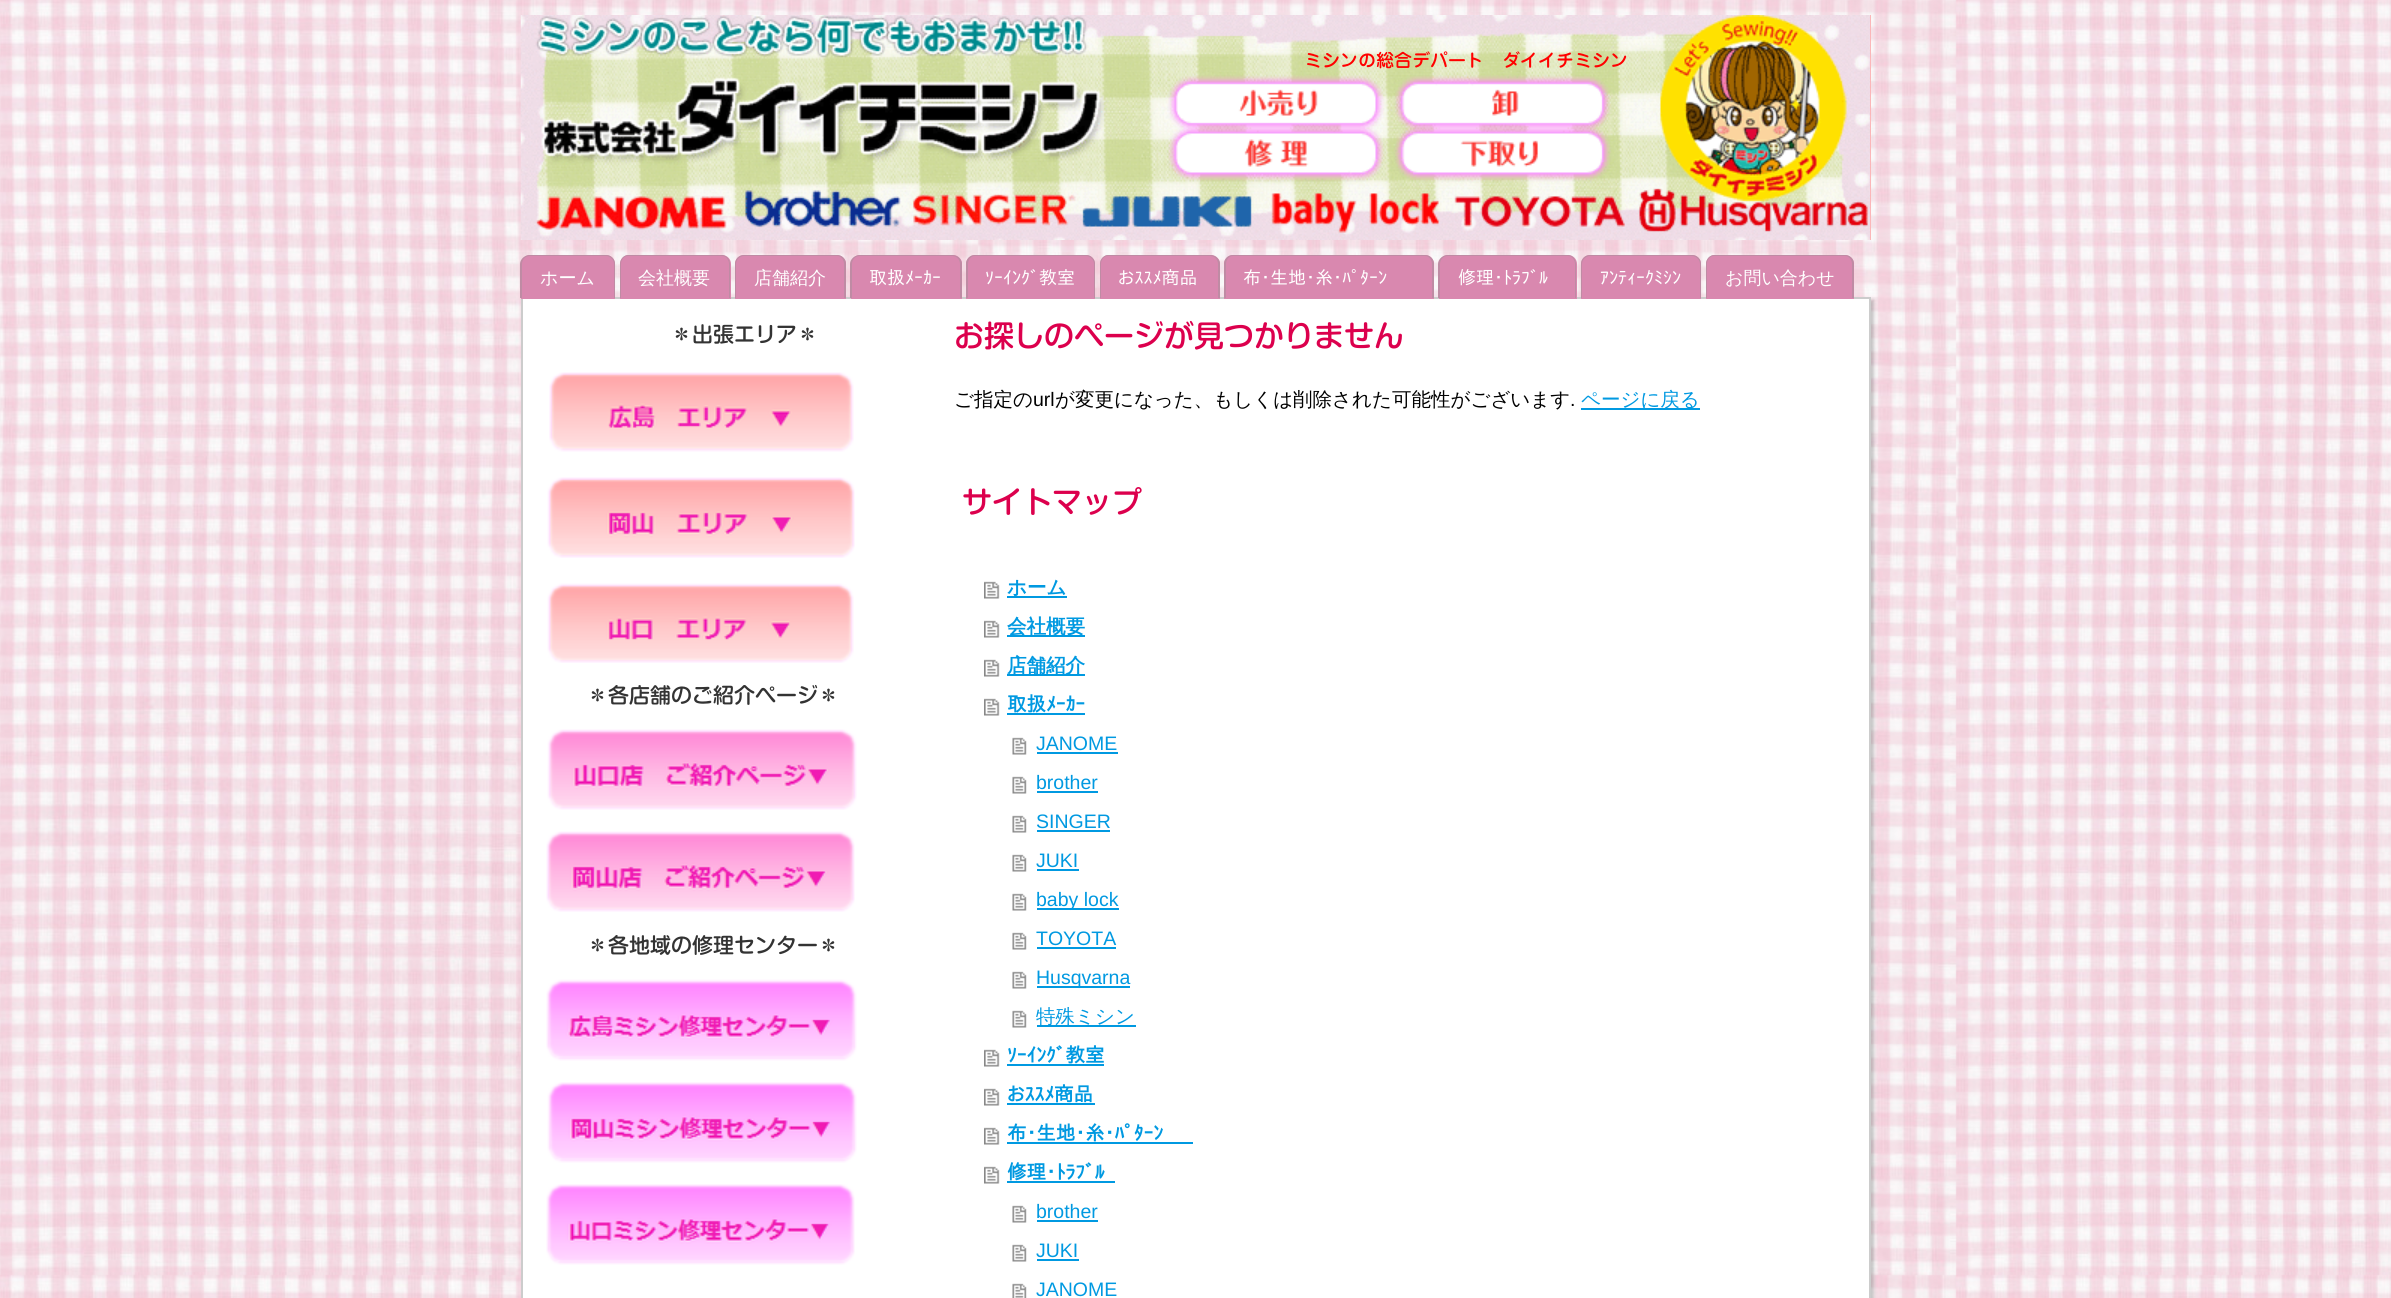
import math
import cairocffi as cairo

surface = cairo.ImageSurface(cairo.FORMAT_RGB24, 2391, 1298)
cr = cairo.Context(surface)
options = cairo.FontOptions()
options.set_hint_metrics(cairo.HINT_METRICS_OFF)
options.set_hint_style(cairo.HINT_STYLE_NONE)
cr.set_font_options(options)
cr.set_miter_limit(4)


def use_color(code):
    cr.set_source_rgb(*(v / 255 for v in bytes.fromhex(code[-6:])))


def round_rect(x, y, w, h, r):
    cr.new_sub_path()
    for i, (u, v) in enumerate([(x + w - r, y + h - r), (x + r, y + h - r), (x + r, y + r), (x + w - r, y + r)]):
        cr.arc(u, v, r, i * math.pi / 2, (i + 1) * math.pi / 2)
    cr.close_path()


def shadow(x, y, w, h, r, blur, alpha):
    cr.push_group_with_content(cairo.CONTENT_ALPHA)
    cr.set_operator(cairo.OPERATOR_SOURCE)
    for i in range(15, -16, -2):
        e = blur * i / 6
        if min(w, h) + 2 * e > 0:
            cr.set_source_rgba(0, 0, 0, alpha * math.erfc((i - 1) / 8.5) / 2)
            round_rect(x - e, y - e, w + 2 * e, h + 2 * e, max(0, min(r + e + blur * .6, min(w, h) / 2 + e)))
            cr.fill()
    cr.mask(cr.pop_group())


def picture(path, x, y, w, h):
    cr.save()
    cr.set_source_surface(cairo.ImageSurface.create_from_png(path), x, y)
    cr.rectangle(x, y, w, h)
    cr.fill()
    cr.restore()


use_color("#ffffff")
cr.paint()
picture("img1.png", 0, 0, 2391, 1298)
use_color("#ffa8a8")
cr.rectangle(1870, 15, 1, 225)
cr.fill()
picture("img2.png", 520, 15, 1351, 225)
cr.select_font_face("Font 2 Medium")
cr.set_font_size(18)
use_color("#ff0000")
cr.move_to(1304, 67)
cr.show_text("ミシンの総合デパート　ダイイチミシン")
use_color("#000000")
shadow(524, 300, 1350, 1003, 0, 1.5, 0.2)
use_color("#ffffff")
cr.rectangle(522, 298, 1348, 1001)
cr.fill_preserve()
use_color("#cccccc")
cr.stroke()
use_color("#d988af")
cr.new_path()
cr.move_to(530, 255)
cr.line_to(606, 255)
cr.curve_to(611, 255, 615, 259, 615, 264)
cr.line_to(615, 299)
cr.line_to(521, 299)
cr.line_to(521, 264)
cr.curve_to(521, 259, 525, 255, 530, 255)
cr.close_path()
cr.fill()
use_color("#bf8ba4")
cr.set_fill_rule(cairo.FILL_RULE_EVEN_ODD)
cr.new_path()
cr.move_to(530, 255)
cr.line_to(606, 255)
cr.curve_to(611, 255, 615, 259, 615, 264)
cr.line_to(615, 298)
cr.line_to(520, 298)
cr.line_to(520, 264)
cr.curve_to(520, 259, 525, 255, 530, 255)
cr.close_path()
cr.move_to(530, 256)
cr.line_to(606, 256)
cr.curve_to(610, 256, 614, 260, 614, 264)
cr.line_to(614, 298)
cr.line_to(522, 298)
cr.line_to(522, 264)
cr.curve_to(522, 260, 525, 256, 530, 256)
cr.close_path()
cr.fill()
cr.select_font_face("WenQuanYi Zen Hei Medium")
use_color("#ffffff")
cr.move_to(540, 284)
cr.show_text("ホーム")
use_color("#d988af")
cr.new_path()
cr.move_to(629, 255)
cr.line_to(722, 255)
cr.curve_to(727, 255, 731, 259, 731, 264)
cr.line_to(731, 299)
cr.line_to(620, 299)
cr.line_to(620, 264)
cr.curve_to(620, 259, 624, 255, 629, 255)
cr.close_path()
cr.fill()
use_color("#bf8ba4")
cr.new_path()
cr.move_to(628, 255)
cr.line_to(722, 255)
cr.curve_to(726, 255, 730, 259, 730, 264)
cr.line_to(730, 298)
cr.line_to(620, 298)
cr.line_to(620, 264)
cr.curve_to(620, 259, 624, 255, 628, 255)
cr.close_path()
cr.move_to(628, 256)
cr.line_to(722, 256)
cr.curve_to(726, 256, 729, 260, 729, 264)
cr.line_to(729, 298)
cr.line_to(621, 298)
cr.line_to(621, 264)
cr.curve_to(621, 260, 624, 256, 628, 256)
cr.close_path()
cr.fill()
use_color("#ffffff")
cr.move_to(638, 284)
cr.show_text("会社概要")
use_color("#d988af")
cr.new_path()
cr.move_to(744, 255)
cr.line_to(837, 255)
cr.curve_to(842, 255, 846, 259, 846, 264)
cr.line_to(846, 299)
cr.line_to(735, 299)
cr.line_to(735, 264)
cr.curve_to(735, 259, 739, 255, 744, 255)
cr.close_path()
cr.fill()
use_color("#bf8ba4")
cr.new_path()
cr.move_to(744, 255)
cr.line_to(837, 255)
cr.curve_to(842, 255, 846, 259, 846, 264)
cr.line_to(846, 298)
cr.line_to(735, 298)
cr.line_to(735, 264)
cr.curve_to(735, 259, 739, 255, 744, 255)
cr.close_path()
cr.move_to(744, 256)
cr.line_to(837, 256)
cr.curve_to(841, 256, 844, 260, 844, 264)
cr.line_to(844, 298)
cr.line_to(736, 298)
cr.line_to(736, 264)
cr.curve_to(736, 260, 740, 256, 744, 256)
cr.close_path()
cr.fill()
use_color("#ffffff")
cr.move_to(754, 284)
cr.show_text("店舗紹介")
use_color("#d988af")
cr.new_path()
cr.move_to(860, 255)
cr.line_to(953, 255)
cr.curve_to(958, 255, 962, 259, 962, 264)
cr.line_to(962, 299)
cr.line_to(851, 299)
cr.line_to(851, 264)
cr.curve_to(851, 259, 855, 255, 860, 255)
cr.close_path()
cr.fill()
use_color("#bf8ba4")
cr.new_path()
cr.move_to(860, 255)
cr.line_to(952, 255)
cr.curve_to(957, 255, 962, 259, 962, 264)
cr.line_to(962, 298)
cr.line_to(850, 298)
cr.line_to(850, 264)
cr.curve_to(850, 259, 855, 255, 860, 255)
cr.close_path()
cr.move_to(860, 256)
cr.line_to(952, 256)
cr.curve_to(957, 256, 960, 260, 960, 264)
cr.line_to(960, 298)
cr.line_to(852, 298)
cr.line_to(852, 264)
cr.curve_to(852, 260, 855, 256, 860, 256)
cr.close_path()
cr.fill()
cr.select_font_face("IPAPGothic")
use_color("#ffffff")
cr.move_to(869, 284)
cr.show_text("取扱ﾒｰｶｰ")
use_color("#d988af")
cr.new_path()
cr.move_to(975, 255)
cr.line_to(1086, 255)
cr.curve_to(1091, 255, 1095, 259, 1095, 264)
cr.line_to(1095, 299)
cr.line_to(966, 299)
cr.line_to(966, 264)
cr.curve_to(966, 259, 970, 255, 975, 255)
cr.close_path()
cr.fill()
use_color("#bf8ba4")
cr.new_path()
cr.move_to(975, 255)
cr.line_to(1086, 255)
cr.curve_to(1091, 255, 1095, 259, 1095, 264)
cr.line_to(1095, 298)
cr.line_to(966, 298)
cr.line_to(966, 264)
cr.curve_to(966, 259, 970, 255, 975, 255)
cr.close_path()
cr.move_to(975, 256)
cr.line_to(1086, 256)
cr.curve_to(1090, 256, 1094, 260, 1094, 264)
cr.line_to(1094, 298)
cr.line_to(968, 298)
cr.line_to(968, 264)
cr.curve_to(968, 260, 971, 256, 975, 256)
cr.close_path()
cr.fill()
use_color("#ffffff")
cr.move_to(985, 284)
cr.show_text("ｿｰｲﾝｸﾞ教室")
use_color("#d988af")
cr.new_path()
cr.move_to(1109, 255)
cr.line_to(1211, 255)
cr.curve_to(1216, 255, 1220, 259, 1220, 264)
cr.line_to(1220, 299)
cr.line_to(1100, 299)
cr.line_to(1100, 264)
cr.curve_to(1100, 259, 1104, 255, 1109, 255)
cr.close_path()
cr.fill()
use_color("#bf8ba4")
cr.new_path()
cr.move_to(1108, 255)
cr.line_to(1210, 255)
cr.curve_to(1215, 255, 1220, 259, 1220, 264)
cr.line_to(1220, 298)
cr.line_to(1100, 298)
cr.line_to(1100, 264)
cr.curve_to(1100, 259, 1104, 255, 1108, 255)
cr.close_path()
cr.move_to(1108, 256)
cr.line_to(1210, 256)
cr.curve_to(1215, 256, 1218, 260, 1218, 264)
cr.line_to(1218, 298)
cr.line_to(1101, 298)
cr.line_to(1101, 264)
cr.curve_to(1101, 260, 1104, 256, 1108, 256)
cr.close_path()
cr.fill()
use_color("#ffffff")
cr.move_to(1118, 284)
cr.show_text("おｽｽﾒ商品")
use_color("#d988af")
cr.new_path()
cr.move_to(1233, 255)
cr.line_to(1425, 255)
cr.curve_to(1430, 255, 1434, 259, 1434, 264)
cr.line_to(1434, 299)
cr.line_to(1224, 299)
cr.line_to(1224, 264)
cr.curve_to(1224, 259, 1228, 255, 1233, 255)
cr.close_path()
cr.fill()
use_color("#bf8ba4")
cr.new_path()
cr.move_to(1233, 255)
cr.line_to(1425, 255)
cr.curve_to(1430, 255, 1434, 259, 1434, 264)
cr.line_to(1434, 298)
cr.line_to(1224, 298)
cr.line_to(1224, 264)
cr.curve_to(1224, 259, 1228, 255, 1233, 255)
cr.close_path()
cr.move_to(1233, 256)
cr.line_to(1425, 256)
cr.curve_to(1429, 256, 1432, 260, 1432, 264)
cr.line_to(1432, 298)
cr.line_to(1226, 298)
cr.line_to(1226, 264)
cr.curve_to(1226, 260, 1229, 256, 1233, 256)
cr.close_path()
cr.fill()
use_color("#ffffff")
cr.move_to(1243, 284)
cr.show_text("布・生地・糸・ﾊﾟﾀｰﾝ")
use_color("#d988af")
cr.new_path()
cr.move_to(1448, 255)
cr.line_to(1568, 255)
cr.curve_to(1573, 255, 1577, 259, 1577, 264)
cr.line_to(1577, 299)
cr.line_to(1439, 299)
cr.line_to(1439, 264)
cr.curve_to(1439, 259, 1443, 255, 1448, 255)
cr.close_path()
cr.fill()
use_color("#bf8ba4")
cr.new_path()
cr.move_to(1448, 255)
cr.line_to(1568, 255)
cr.curve_to(1572, 255, 1576, 259, 1576, 264)
cr.line_to(1576, 298)
cr.line_to(1438, 298)
cr.line_to(1438, 264)
cr.curve_to(1438, 259, 1443, 255, 1448, 255)
cr.close_path()
cr.move_to(1448, 256)
cr.line_to(1568, 256)
cr.curve_to(1572, 256, 1575, 260, 1575, 264)
cr.line_to(1575, 298)
cr.line_to(1440, 298)
cr.line_to(1440, 264)
cr.curve_to(1440, 260, 1443, 256, 1448, 256)
cr.close_path()
cr.fill()
use_color("#ffffff")
cr.move_to(1458, 284)
cr.show_text("修理・ﾄﾗﾌﾞﾙ")
use_color("#d988af")
cr.new_path()
cr.move_to(1590, 255)
cr.line_to(1692, 255)
cr.curve_to(1697, 255, 1701, 259, 1701, 264)
cr.line_to(1701, 299)
cr.line_to(1581, 299)
cr.line_to(1581, 264)
cr.curve_to(1581, 259, 1585, 255, 1590, 255)
cr.close_path()
cr.fill()
use_color("#bf8ba4")
cr.new_path()
cr.move_to(1590, 255)
cr.line_to(1692, 255)
cr.curve_to(1697, 255, 1701, 259, 1701, 264)
cr.line_to(1701, 298)
cr.line_to(1581, 298)
cr.line_to(1581, 264)
cr.curve_to(1581, 259, 1585, 255, 1590, 255)
cr.close_path()
cr.move_to(1590, 256)
cr.line_to(1692, 256)
cr.curve_to(1696, 256, 1700, 260, 1700, 264)
cr.line_to(1700, 298)
cr.line_to(1582, 298)
cr.line_to(1582, 264)
cr.curve_to(1582, 260, 1586, 256, 1590, 256)
cr.close_path()
cr.fill()
use_color("#ffffff")
cr.move_to(1600, 284)
cr.show_text("ｱﾝﾃｨｰｸﾐｼﾝ")
use_color("#d988af")
cr.new_path()
cr.move_to(1715, 255)
cr.line_to(1845, 255)
cr.curve_to(1850, 255, 1854, 259, 1854, 264)
cr.line_to(1854, 299)
cr.line_to(1706, 299)
cr.line_to(1706, 264)
cr.curve_to(1706, 259, 1710, 255, 1715, 255)
cr.close_path()
cr.fill()
use_color("#bf8ba4")
cr.new_path()
cr.move_to(1714, 255)
cr.line_to(1845, 255)
cr.curve_to(1850, 255, 1854, 259, 1854, 264)
cr.line_to(1854, 298)
cr.line_to(1706, 298)
cr.line_to(1706, 264)
cr.curve_to(1706, 259, 1710, 255, 1714, 255)
cr.close_path()
cr.move_to(1714, 256)
cr.line_to(1845, 256)
cr.curve_to(1849, 256, 1852, 260, 1852, 264)
cr.line_to(1852, 298)
cr.line_to(1707, 298)
cr.line_to(1707, 264)
cr.curve_to(1707, 260, 1710, 256, 1714, 256)
cr.close_path()
cr.fill()
cr.select_font_face("WenQuanYi Zen Hei Medium")
use_color("#ffffff")
cr.move_to(1725, 284)
cr.show_text("お問い合わせ")
cr.select_font_face("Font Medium")
cr.set_font_size(21)
use_color("#333333")
cr.move_to(671, 342)
cr.show_text("＊出張エリア＊")
picture("img3.png", 549, 372, 305, 80)
picture("img4.png", 547, 477, 308, 81)
picture("img5.png", 547, 583, 307, 80)
cr.move_to(587, 703)
cr.show_text("＊各店舗のご紹介ページ＊")
picture("img6.png", 547, 729, 310, 81)
picture("img7.png", 546, 831, 309, 81)
cr.move_to(587, 953)
cr.show_text("＊各地域の修理センター＊")
picture("img8.png", 546, 979, 311, 82)
picture("img9.png", 547, 1082, 310, 81)
picture("img10.png", 546, 1184, 309, 81)
cr.set_font_size(30)
use_color("#dc004d")
cr.move_to(954, 347)
cr.show_text("お探しのページが見つかりません")
cr.select_font_face("WenQuanYi Zen Hei Medium")
cr.set_font_size(19.5)
use_color("#000000")
cr.move_to(954, 406)
cr.show_text("ご指定の")
cr.select_font_face("Liberation Sans")
cr.move_to(1033, 406)
cr.show_text("url")
cr.select_font_face("WenQuanYi Zen Hei Medium")
cr.move_to(1055, 406)
cr.show_text("が変更になった、もしくは削除された可能性がございます")
cr.select_font_face("Liberation Sans")
cr.move_to(1570, 406)
cr.show_text(".")
use_color("#0099e1")
cr.rectangle(1581, 408, 119, 2)
cr.fill()
cr.select_font_face("WenQuanYi Zen Hei Medium")
cr.move_to(1581, 406)
cr.show_text("ページに戻る")
cr.select_font_face("Font Medium")
cr.set_font_size(30)
use_color("#dc004d")
cr.move_to(962, 513)
cr.show_text("サイトマップ")
picture("img11.png", 984, 581, 16, 18)
cr.select_font_face("WenQuanYi Zen Hei", cairo.FONT_SLANT_NORMAL, cairo.FONT_WEIGHT_BOLD)
cr.set_font_size(19.5)
use_color("#0099e1")
cr.move_to(1007, 594)
cr.show_text("ホーム")
cr.rectangle(1007, 596, 60, 2)
cr.fill()
picture("img11.png", 984, 620, 16, 18)
cr.rectangle(1007, 635, 78, 2)
cr.fill()
cr.move_to(1007, 633)
cr.show_text("会社概要")
picture("img11.png", 984, 659, 16, 18)
cr.rectangle(1007, 674, 78, 2)
cr.fill()
cr.move_to(1007, 672)
cr.show_text("店舗紹介")
picture("img11.png", 984, 698, 16, 18)
cr.select_font_face("IPAPGothic", cairo.FONT_SLANT_NORMAL, cairo.FONT_WEIGHT_BOLD)
cr.move_to(1007, 711)
cr.show_text("取扱ﾒｰｶｰ")
cr.rectangle(1007, 713, 78, 2)
cr.fill()
picture("img12.png", 1012, 737, 15, 18)
cr.select_font_face("Liberation Sans")
cr.move_to(1036, 750)
cr.show_text("JANOME")
cr.rectangle(1037, 752, 81, 2)
cr.fill()
picture("img12.png", 1012, 776, 15, 18)
cr.move_to(1036, 789)
cr.show_text("brother")
cr.rectangle(1037, 791, 61, 2)
cr.fill()
picture("img12.png", 1012, 815, 15, 18)
cr.move_to(1036, 828)
cr.show_text("SINGER")
cr.rectangle(1037, 830, 73, 2)
cr.fill()
picture("img12.png", 1012, 854, 15, 18)
cr.move_to(1036, 867)
cr.show_text("JUKI")
cr.rectangle(1037, 869, 42, 2)
cr.fill()
picture("img12.png", 1012, 893, 15, 18)
cr.rectangle(1037, 908, 82, 2)
cr.fill()
cr.move_to(1036, 906)
cr.show_text("baby lock")
picture("img12.png", 1012, 932, 15, 18)
cr.move_to(1036, 945)
cr.show_text("TOYOTA")
cr.rectangle(1037, 947, 79, 2)
cr.fill()
picture("img12.png", 1012, 971, 15, 18)
cr.rectangle(1037, 986, 93, 2)
cr.fill()
cr.move_to(1036, 984)
cr.show_text("Husqvarna")
picture("img12.png", 1012, 1010, 15, 18)
cr.rectangle(1037, 1025, 99, 2)
cr.fill()
cr.select_font_face("WenQuanYi Zen Hei Medium")
cr.move_to(1036, 1023)
cr.show_text("特殊ミシン")
picture("img11.png", 984, 1049, 16, 18)
cr.select_font_face("IPAPGothic", cairo.FONT_SLANT_NORMAL, cairo.FONT_WEIGHT_BOLD)
cr.move_to(1007, 1062)
cr.show_text("ｿｰｲﾝｸﾞ教室")
cr.rectangle(1007, 1064, 97, 2)
cr.fill()
picture("img11.png", 984, 1088, 16, 18)
cr.move_to(1007, 1101)
cr.show_text("おｽｽﾒ商品")
cr.rectangle(1007, 1103, 88, 2)
cr.fill()
picture("img11.png", 984, 1127, 16, 18)
cr.move_to(1007, 1140)
cr.show_text("布・生地・糸・ﾊﾟﾀｰﾝ")
cr.rectangle(1007, 1142, 186, 2)
cr.fill()
picture("img11.png", 984, 1166, 16, 18)
cr.move_to(1007, 1179)
cr.show_text("修理・ﾄﾗﾌﾞﾙ")
cr.rectangle(1007, 1181, 108, 2)
cr.fill()
picture("img12.png", 1012, 1205, 15, 18)
cr.select_font_face("Liberation Sans")
cr.move_to(1036, 1218)
cr.show_text("brother")
cr.rectangle(1037, 1220, 61, 2)
cr.fill()
picture("img12.png", 1012, 1244, 15, 18)
cr.move_to(1036, 1257)
cr.show_text("JUKI")
cr.rectangle(1037, 1259, 42, 2)
cr.fill()
picture("img13.png", 1012, 1283, 15, 15)
cr.move_to(1036, 1296)
cr.show_text("JANOME")
surface.write_to_png("result.png")
